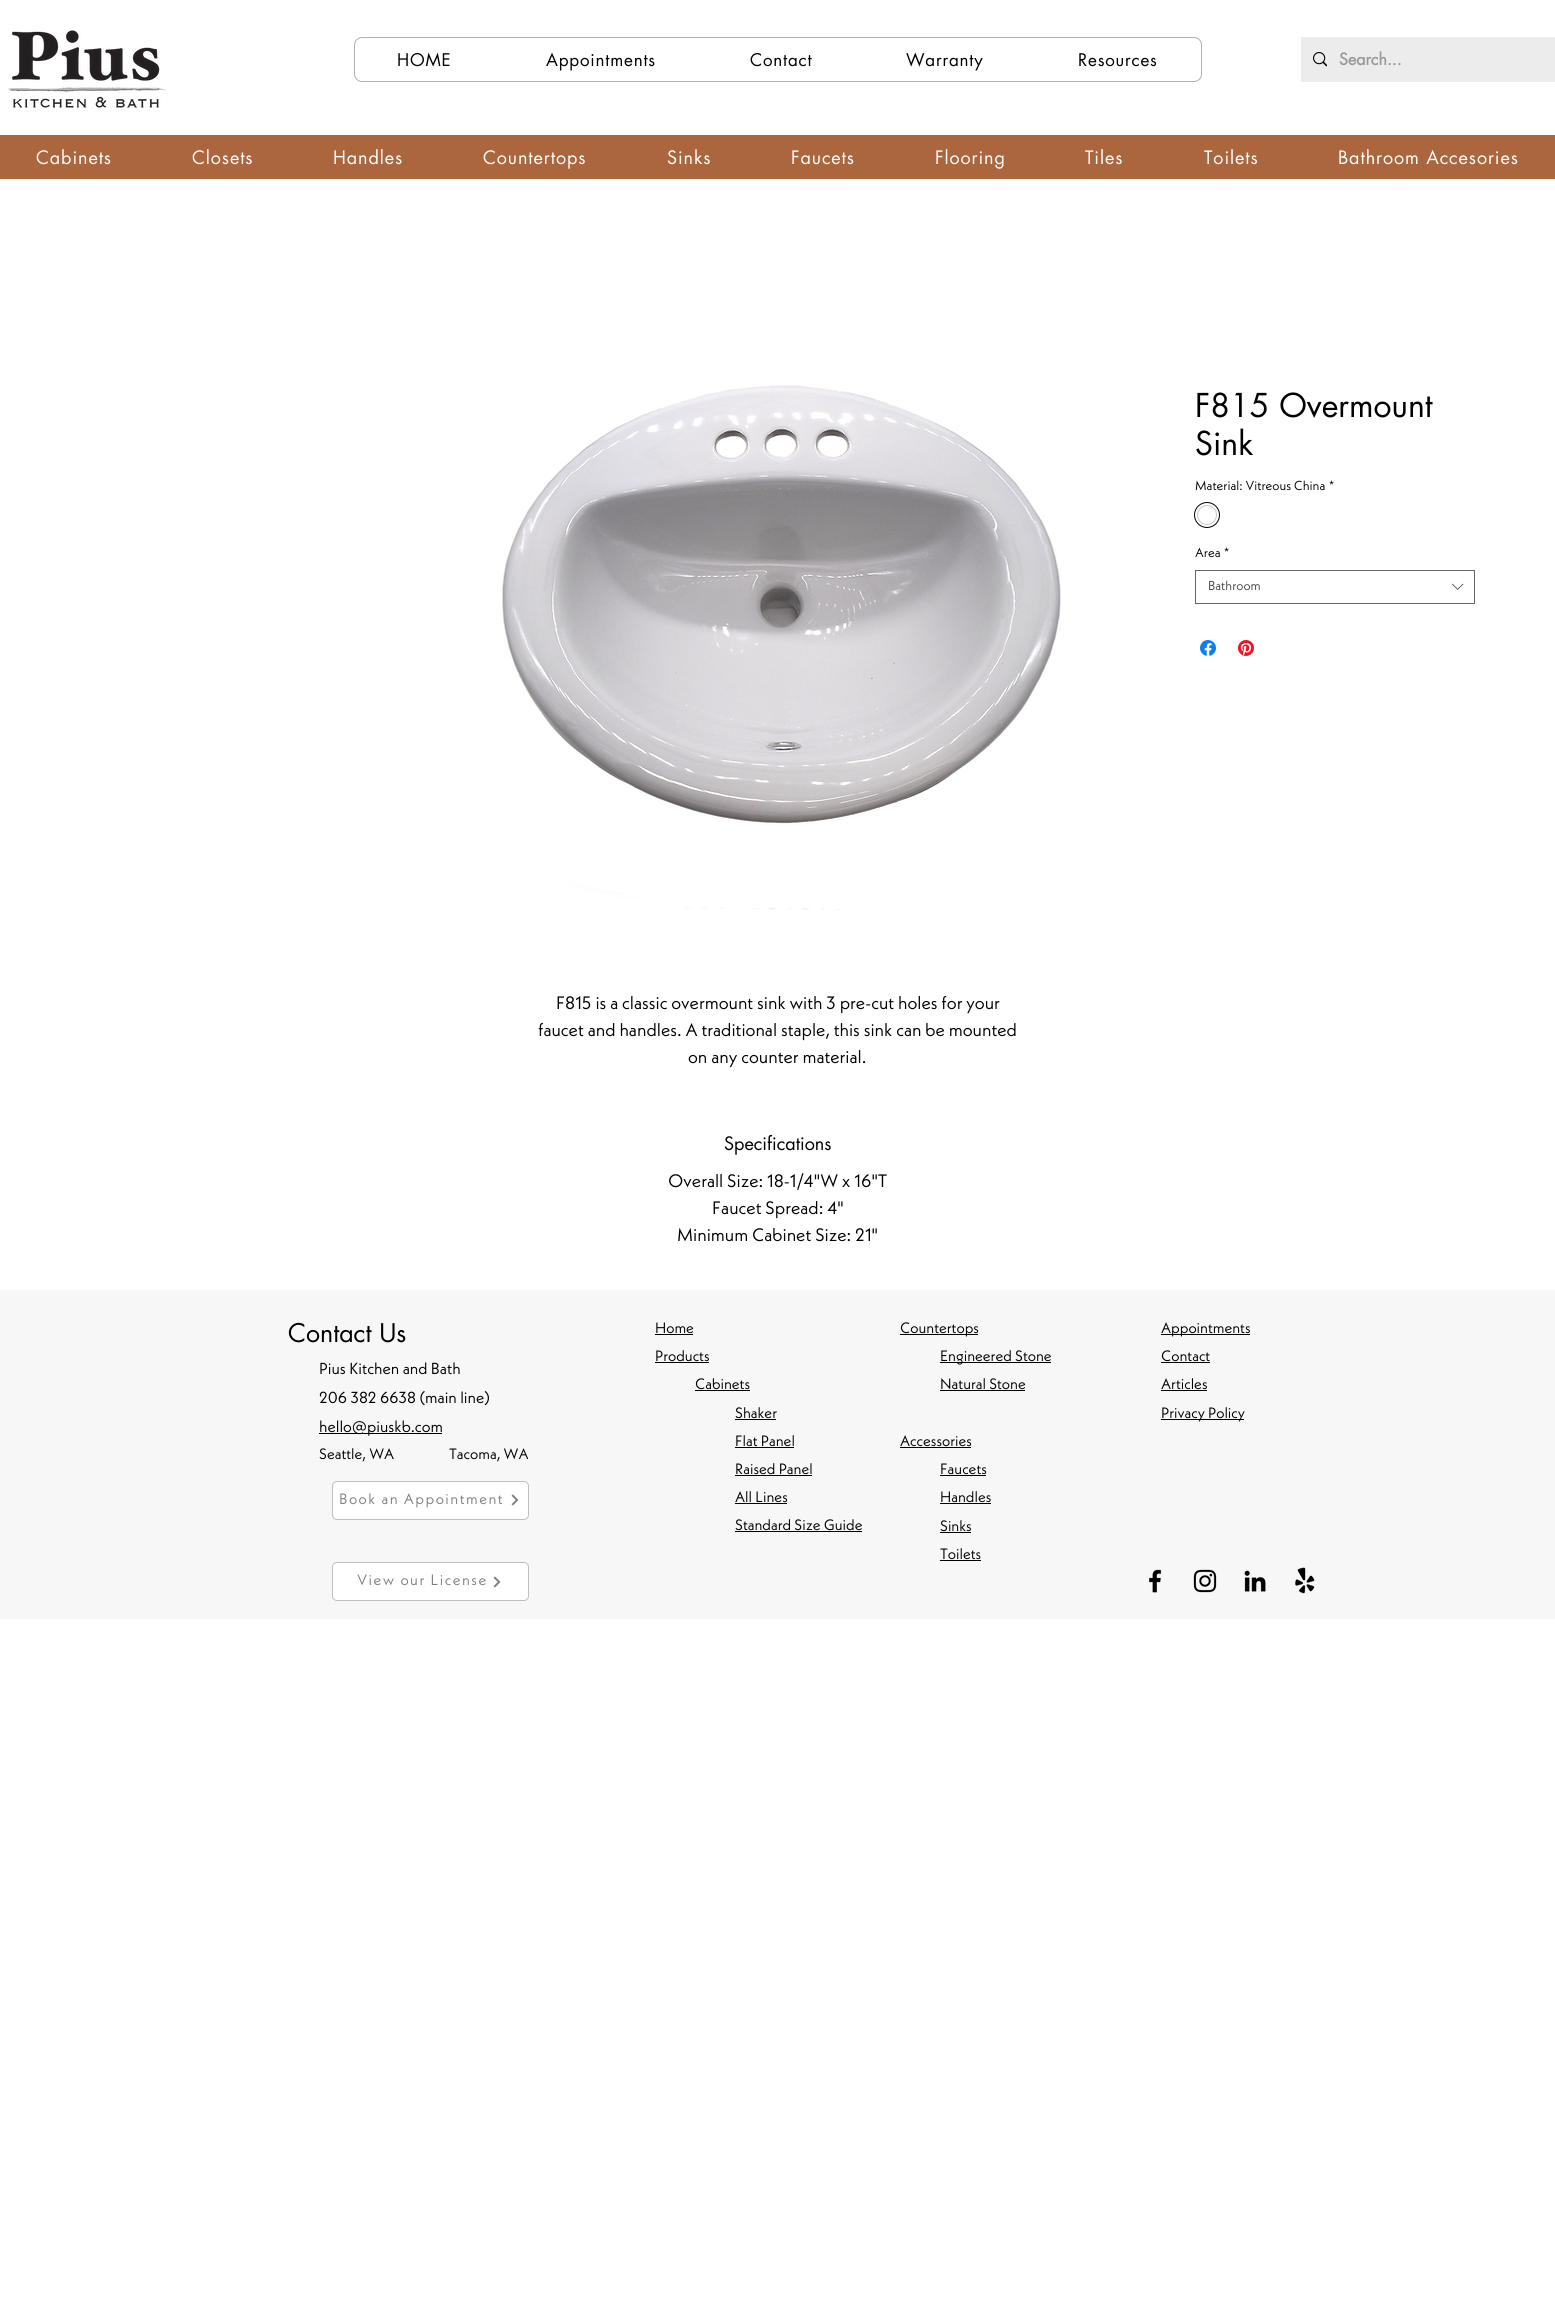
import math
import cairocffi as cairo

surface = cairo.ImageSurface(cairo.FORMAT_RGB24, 1555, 2315)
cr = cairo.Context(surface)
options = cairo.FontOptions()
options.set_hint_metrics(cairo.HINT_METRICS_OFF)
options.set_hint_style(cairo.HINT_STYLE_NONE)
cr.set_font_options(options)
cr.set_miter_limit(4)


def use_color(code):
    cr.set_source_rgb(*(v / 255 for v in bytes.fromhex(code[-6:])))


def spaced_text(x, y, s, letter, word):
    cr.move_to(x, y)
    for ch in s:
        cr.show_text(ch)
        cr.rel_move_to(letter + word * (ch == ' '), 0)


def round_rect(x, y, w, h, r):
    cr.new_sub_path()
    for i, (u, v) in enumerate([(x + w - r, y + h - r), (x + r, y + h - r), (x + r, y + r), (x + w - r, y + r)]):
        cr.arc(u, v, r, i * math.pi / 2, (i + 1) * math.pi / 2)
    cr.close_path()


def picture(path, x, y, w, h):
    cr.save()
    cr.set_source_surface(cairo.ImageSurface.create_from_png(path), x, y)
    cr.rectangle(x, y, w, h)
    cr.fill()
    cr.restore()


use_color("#ffffff")
cr.paint()
picture("img1.png", 8, 30, 158, 78)
round_rect(354.5, 37.5, 847, 44, 7.5)
use_color("#b2b1b1")
cr.set_line_width(1)
cr.stroke()
cr.select_font_face("futura")
cr.set_font_size(17)
use_color("#000000")
spaced_text(397, 66, "HOME", 0.8, 0)
spaced_text(546, 66, "Appointments", 0.8, 0)
spaced_text(750, 66, "Contact", 0.8, 0)
spaced_text(906, 66, "Warranty", 0.8, 0)
spaced_text(1078, 66, "Resources", 0.8, 0)
use_color("#ececec")
cr.rectangle(1301, 37, 254, 45)
cr.fill()
picture("img2.png", 1313, 52, 14, 15)
cr.select_font_face("futura", cairo.FONT_SLANT_NORMAL, cairo.FONT_WEIGHT_BOLD)
cr.set_font_size(16)
use_color("#999999")
cr.move_to(1339, 65)
cr.show_text("Search...")
use_color("#ac663e")
cr.rectangle(0, 135, 1555, 44)
cr.fill()
cr.select_font_face("futura")
cr.set_font_size(18)
use_color("#ffffff")
spaced_text(36, 164, "Cabinets", 0.9, 0)
spaced_text(192, 164, "Closets", 0.9, 0)
spaced_text(333, 164, "Handles", 0.9, 0)
spaced_text(483, 164, "Countertops", 0.9, 0)
spaced_text(667, 164, "Sinks", 0.9, 0)
spaced_text(791, 164, "Faucets", 0.9, 0)
spaced_text(935, 164, "Flooring", 0.9, 0)
spaced_text(1085, 164, "Tiles", 0.9, 0)
spaced_text(1204, 164, "Toilets", 0.9, 0)
spaced_text(1338, 164, "Bathroom Accesories", 0.9, 0)
picture("img3.png", 502, 385, 559, 525)
cr.set_font_size(32)
use_color("#000000")
cr.move_to(1195, 417)
cr.show_text("F815 Overmount")
cr.move_to(1195, 455)
cr.show_text("Sink")
cr.select_font_face("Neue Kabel")
cr.set_font_size(13)
cr.move_to(1195, 490)
cr.show_text("Material: Vitreous China")
cr.move_to(1329, 490)
cr.show_text("*")
cr.new_path()
cr.arc(1207, 515, 12.5, 0, 2 * math.pi)
cr.stroke()
cr.arc(1207, 515, 9.5, 0, 2 * math.pi)
use_color("#c9c9c9")
cr.stroke()
use_color("#000000")
cr.move_to(1195, 557)
cr.show_text("Area")
cr.move_to(1224, 557)
cr.show_text("*")
cr.rectangle(1195.5, 570.5, 279, 33)
use_color("#666666")
cr.stroke()
use_color("#444444")
cr.move_to(1208, 590)
cr.show_text("Bathroom")
picture("img4.png", 1452, 583, 12, 7)
picture("img5.png", 1200, 640, 16, 16)
picture("img6.png", 1238, 640, 16, 16)
cr.set_font_size(18)
use_color("#000000")
cr.move_to(556, 1009)
cr.show_text("F815 is a classic overmount sink with 3 pre-cut holes for your")
cr.move_to(538, 1036)
cr.show_text("faucet and handles. A traditional staple, this sink can be mounted")
cr.move_to(688, 1063)
cr.show_text("on any counter material.")
cr.select_font_face("futura")
cr.move_to(724, 1150)
cr.show_text("Specifications")
cr.select_font_face("Neue Kabel")
cr.move_to(668, 1187)
cr.show_text("Overall Size: 18-1/4\"W x 16\"T")
cr.move_to(712, 1214)
cr.show_text("Faucet Spread: 4\"")
cr.move_to(677, 1241)
cr.show_text("Minimum Cabinet Size: 21\"")
use_color("#f7f7f7")
cr.rectangle(0, 1290, 1555, 329)
cr.fill()
cr.select_font_face("futura")
cr.set_font_size(25)
use_color("#000000")
cr.move_to(288, 1342)
cr.show_text("Contact Us")
cr.select_font_face("Neue Kabel")
cr.set_font_size(16)
cr.move_to(319, 1374)
cr.show_text("Pius Kitchen and Bath")
cr.move_to(319, 1403)
cr.show_text("206 382 6638 (main line)")
cr.rectangle(319, 1433, 123, 1)
cr.fill()
cr.move_to(319, 1432)
cr.show_text("hello@piuskb.com")
cr.set_font_size(15)
cr.move_to(319, 1459)
cr.show_text("Seattle, WA")
cr.move_to(449, 1459)
cr.show_text("Tacoma, WA")
use_color("#ffffff")
round_rect(332.5, 1481.5, 196, 38, 4.5)
cr.fill_preserve()
use_color("#bfbfbf")
cr.stroke()
use_color("#808080")
spaced_text(339, 1504, "Book an Appointment", 1.5, 0)
picture("img7.png", 511, 1494, 8, 12)
use_color("#000000")
cr.move_to(655, 1333)
cr.show_text("Home")
cr.rectangle(655, 1334, 38, 1)
cr.fill()
cr.move_to(655, 1361)
cr.show_text("Products")
cr.rectangle(655, 1362, 54, 1)
cr.fill()
cr.move_to(695, 1389)
cr.show_text("Cabinets")
cr.rectangle(695, 1390, 55, 1)
cr.fill()
cr.move_to(735, 1418)
cr.show_text("Shaker")
cr.rectangle(735, 1419, 41, 1)
cr.fill()
cr.move_to(735, 1446)
cr.show_text("Flat Panel")
cr.rectangle(735, 1447, 59, 1)
cr.fill()
cr.move_to(735, 1474)
cr.show_text("Raised Panel")
cr.rectangle(735, 1475, 77, 1)
cr.fill()
cr.move_to(735, 1502)
cr.show_text("All Lines")
cr.rectangle(735, 1503, 52, 1)
cr.fill()
cr.move_to(735, 1530)
cr.show_text("Standard Size Guide")
cr.rectangle(735, 1531, 127, 1)
cr.fill()
cr.rectangle(900, 1334, 78, 1)
cr.fill()
cr.move_to(900, 1333)
cr.show_text("Countertops")
cr.rectangle(940, 1362, 111, 1)
cr.fill()
cr.move_to(940, 1361)
cr.show_text("Engineered Stone")
cr.move_to(940, 1389)
cr.show_text("Natural Stone")
cr.rectangle(940, 1390, 85, 1)
cr.fill()
cr.rectangle(1161, 1334, 89, 1)
cr.fill()
cr.move_to(1161, 1333)
cr.show_text("Appointments")
cr.move_to(1161, 1361)
cr.show_text("Contact")
cr.rectangle(1161, 1362, 49, 1)
cr.fill()
cr.move_to(1161, 1389)
cr.show_text("Articles")
cr.rectangle(1161, 1390, 46, 1)
cr.fill()
cr.rectangle(1161, 1419, 83, 1)
cr.fill()
cr.move_to(1161, 1418)
cr.show_text("Privacy Policy")
cr.move_to(900, 1446)
cr.show_text("Accessories")
cr.rectangle(900, 1447, 71, 1)
cr.fill()
cr.move_to(940, 1474)
cr.show_text("Faucets")
cr.rectangle(940, 1475, 46, 1)
cr.fill()
cr.move_to(940, 1502)
cr.show_text("Handles")
cr.rectangle(940, 1503, 51, 1)
cr.fill()
cr.move_to(940, 1531)
cr.show_text("Sinks")
cr.rectangle(940, 1532, 31, 1)
cr.fill()
cr.move_to(940, 1559)
cr.show_text("Toilets")
cr.rectangle(940, 1560, 41, 1)
cr.fill()
use_color("#ffffff")
round_rect(332.5, 1562.5, 196, 38, 4.5)
cr.fill_preserve()
use_color("#bfbfbf")
cr.stroke()
use_color("#808080")
spaced_text(357, 1585, "View our License", 1.5, 0)
picture("img7.png", 493, 1576, 8, 12)
picture("img8.png", 1149, 1569, 13, 24)
picture("img9.png", 1193, 1569, 24, 24)
picture("img10.png", 1244, 1570, 22, 22)
picture("img11.png", 1295, 1567, 20, 27)
surface.write_to_png("result.png")
